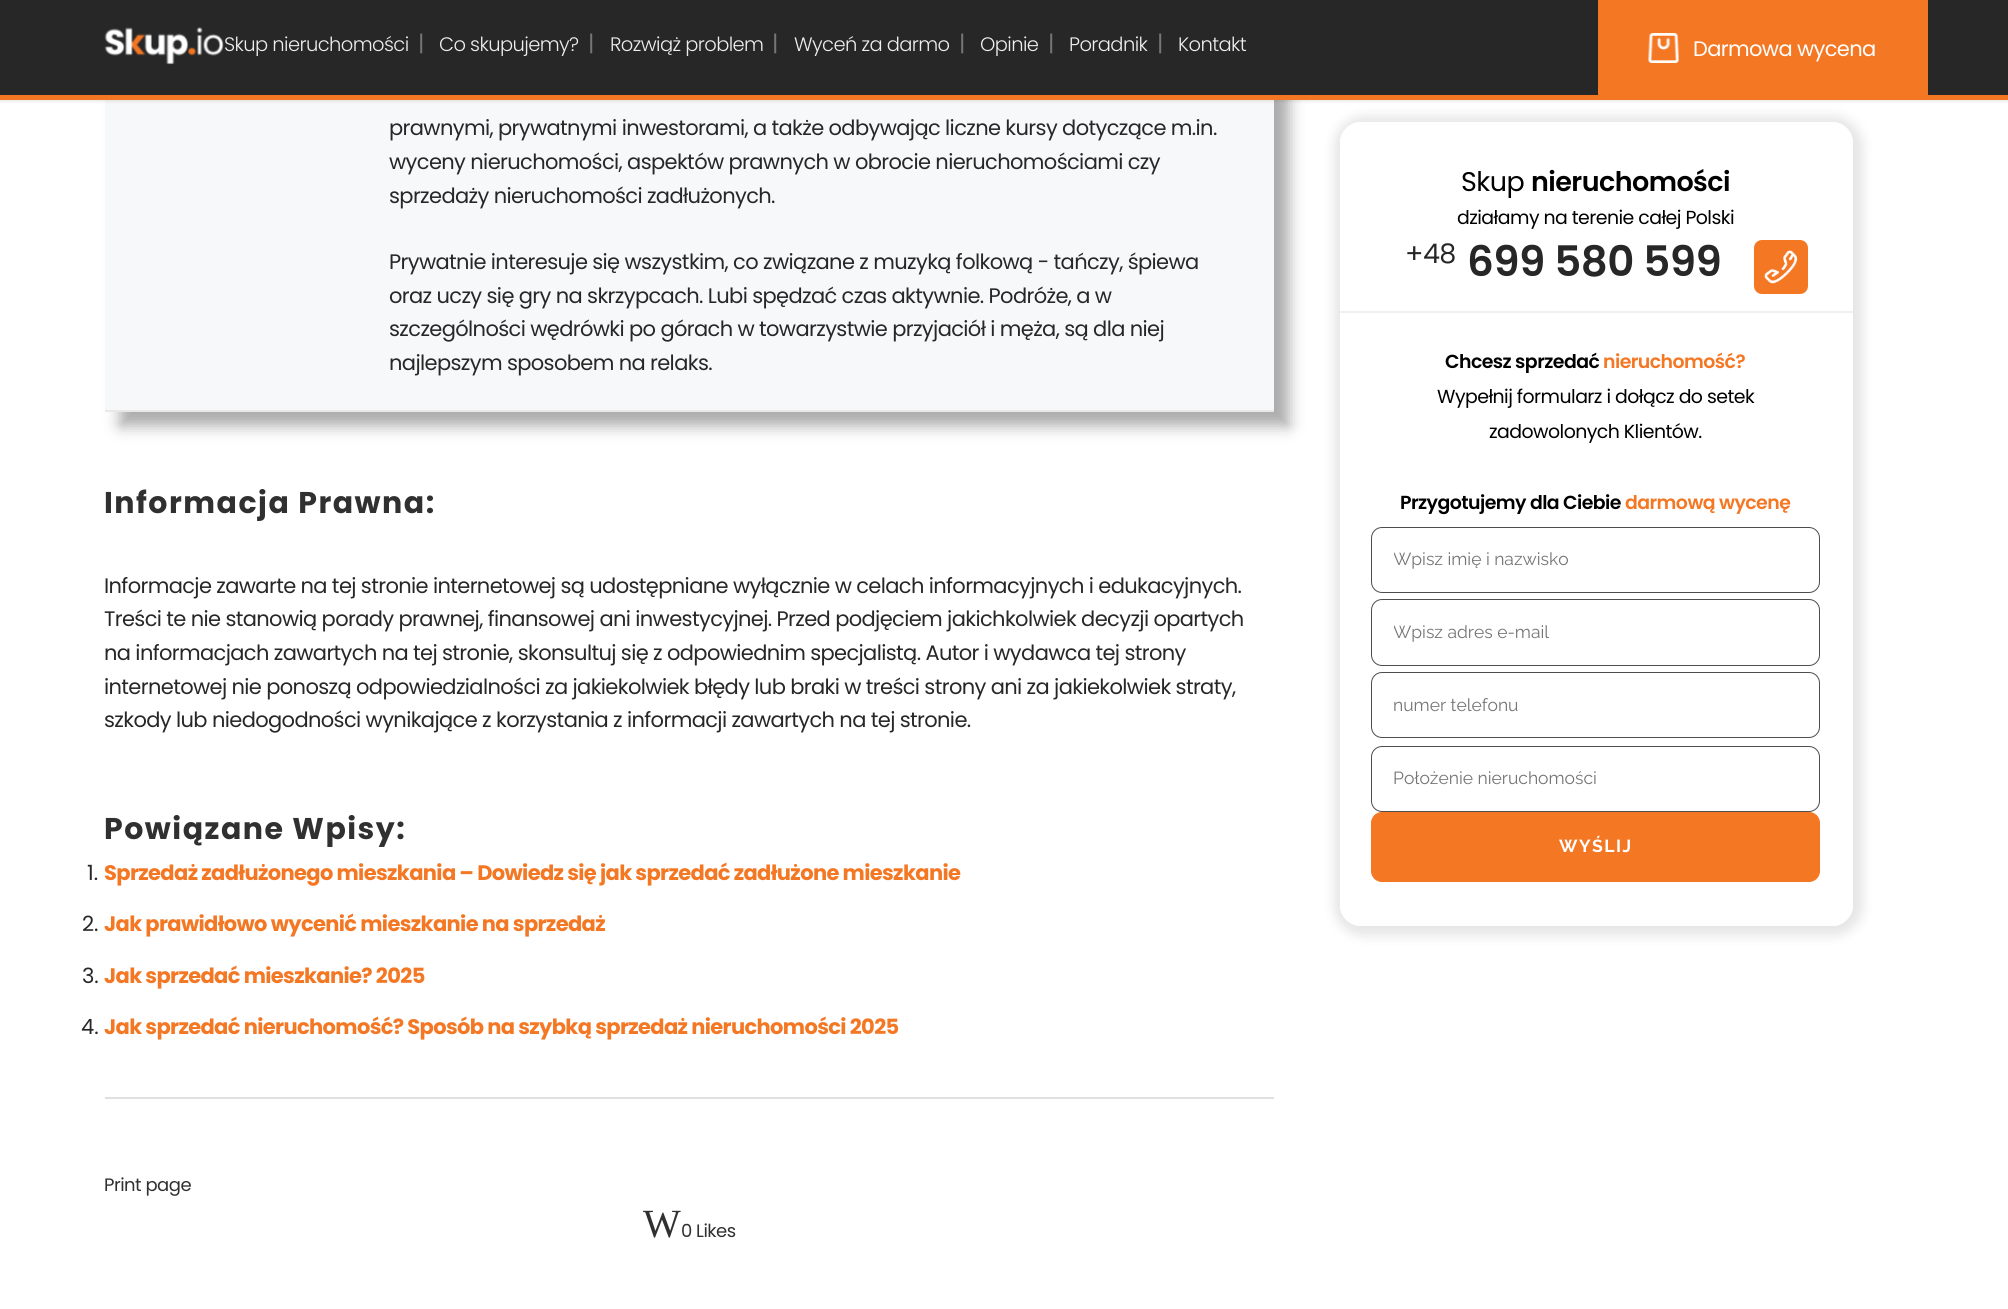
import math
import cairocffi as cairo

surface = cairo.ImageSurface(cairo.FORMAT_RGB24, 2008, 1309)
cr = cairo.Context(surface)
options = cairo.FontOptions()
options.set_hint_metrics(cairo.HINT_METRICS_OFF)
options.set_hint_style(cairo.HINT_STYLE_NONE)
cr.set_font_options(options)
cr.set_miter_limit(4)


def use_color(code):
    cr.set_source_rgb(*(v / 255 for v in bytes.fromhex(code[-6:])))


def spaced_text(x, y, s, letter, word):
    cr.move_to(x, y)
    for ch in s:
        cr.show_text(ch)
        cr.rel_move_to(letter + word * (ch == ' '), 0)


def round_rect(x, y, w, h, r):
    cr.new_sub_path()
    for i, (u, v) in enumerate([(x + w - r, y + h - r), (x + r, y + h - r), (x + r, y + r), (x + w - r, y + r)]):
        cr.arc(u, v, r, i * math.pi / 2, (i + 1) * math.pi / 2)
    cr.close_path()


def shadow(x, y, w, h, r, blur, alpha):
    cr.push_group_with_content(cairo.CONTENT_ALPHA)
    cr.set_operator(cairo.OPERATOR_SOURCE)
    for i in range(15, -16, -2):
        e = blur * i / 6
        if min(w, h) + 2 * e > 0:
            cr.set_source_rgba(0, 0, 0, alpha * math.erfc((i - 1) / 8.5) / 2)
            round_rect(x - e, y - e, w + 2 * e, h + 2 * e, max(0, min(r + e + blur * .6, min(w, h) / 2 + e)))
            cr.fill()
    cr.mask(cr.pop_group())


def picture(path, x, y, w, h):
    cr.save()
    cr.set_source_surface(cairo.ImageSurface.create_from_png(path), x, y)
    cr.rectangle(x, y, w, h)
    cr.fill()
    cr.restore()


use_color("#ffffff")
cr.paint()
use_color("#ababab")
shadow(120, -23, 1169, 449, 0, 7.5, 1)
use_color("#f7f8f9")
cr.rectangle(105, 100, 1169, 310)
cr.fill()
use_color("#000000")
shadow(0, 2, 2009, 99, 0, 2, 0.11)
use_color("#272727")
cr.rectangle(0, 0, 2008, 95)
cr.fill()
cr.save()
cr.set_fill_rule(cairo.FILL_RULE_EVEN_ODD)
cr.new_path()
cr.move_to(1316, 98)
cr.line_to(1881, 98)
cr.line_to(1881, 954)
cr.line_to(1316, 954)
cr.close_path()
cr.move_to(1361, 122)
cr.line_to(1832, 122)
cr.curve_to(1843.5, 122, 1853, 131.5, 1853, 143)
cr.line_to(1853, 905)
cr.curve_to(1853, 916.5, 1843.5, 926, 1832, 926)
cr.line_to(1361, 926)
cr.curve_to(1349.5, 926, 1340, 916.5, 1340, 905)
cr.line_to(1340, 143)
cr.curve_to(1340, 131.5, 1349.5, 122, 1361, 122)
cr.close_path()
cr.clip()
use_color("#000000")
shadow(1334, 116, 529, 820, 29, 5.5, 0.1)
cr.restore()
use_color("#f47724")
cr.rectangle(0, 95, 2008, 5)
cr.fill()
picture("img1.png", 104, 27, 120, 38)
cr.select_font_face("Poppins Light")
cr.set_font_size(19.5)
use_color("#eeeeee")
spaced_text(224, 51, "Skup nieruchomości", -0.6, 0)
cr.select_font_face("Poppins")
cr.set_font_size(22)
use_color("#757575")
cr.move_to(418, 51)
cr.show_text("|")
cr.select_font_face("Poppins Light")
cr.set_font_size(19.5)
use_color("#eeeeee")
spaced_text(439, 51, "Co skupujemy?", -0.6, 0)
cr.select_font_face("Poppins")
cr.set_font_size(22)
use_color("#757575")
cr.move_to(588, 51)
cr.show_text("|")
cr.select_font_face("Poppins Light")
cr.set_font_size(19.5)
use_color("#eeeeee")
spaced_text(610, 51, "Rozwiąż problem", -0.6, 0)
cr.select_font_face("Poppins")
cr.set_font_size(22)
use_color("#757575")
cr.move_to(772, 51)
cr.show_text("|")
cr.select_font_face("Poppins Light")
cr.set_font_size(19.5)
use_color("#eeeeee")
spaced_text(794, 51, "Wyceń za darmo", -0.6, 0)
cr.select_font_face("Poppins")
cr.set_font_size(22)
use_color("#757575")
cr.move_to(959, 51)
cr.show_text("|")
cr.select_font_face("Poppins Light")
cr.set_font_size(19.5)
use_color("#eeeeee")
spaced_text(980, 51, "Opinie", -0.6, 0)
cr.select_font_face("Poppins")
cr.set_font_size(22)
use_color("#757575")
cr.move_to(1048, 51)
cr.show_text("|")
cr.select_font_face("Poppins Light")
cr.set_font_size(19.5)
use_color("#eeeeee")
spaced_text(1069, 51, "Poradnik", -0.6, 0)
cr.select_font_face("Poppins")
cr.set_font_size(22)
use_color("#757575")
cr.move_to(1157, 51)
cr.show_text("|")
cr.select_font_face("Poppins Light")
cr.set_font_size(19.5)
use_color("#eeeeee")
spaced_text(1178, 51, "Kontakt", -0.6, 0)
use_color("#f47724")
cr.rectangle(1598, 0, 330, 95)
cr.fill()
picture("img2.png", 1648, 33, 31, 30)
cr.select_font_face("Poppins")
cr.set_font_size(21)
use_color("#ffffff")
spaced_text(1693, 56, "Darmowa wycena", -0.63, 0)
use_color("#e8e8e8")
cr.rectangle(105, 410, 1169, 2)
cr.fill()
use_color("#272727")
spaced_text(389, 135, "prawnymi, prywatnymi inwestorami, a także odbywając liczne kursy dotyczące m.in.", -0.63, 0)
spaced_text(389, 169, "wyceny nieruchomości, aspektów prawnych w obrocie nieruchomościami czy", -0.63, 0)
spaced_text(389, 203, "sprzedaży nieruchomości zadłużonych.", -0.63, 0)
spaced_text(389, 269, "Prywatnie interesuje się wszystkim, co związane z muzyką folkową - tańczy, śpiewa", -0.63, 0)
spaced_text(389, 303, "oraz uczy się gry na skrzypcach. Lubi spędzać czas aktywnie. Podróże, a w", -0.63, 0)
spaced_text(389, 336, "szczególności wędrówki po górach w towarzystwie przyjaciół i męża, są dla niej", -0.63, 0)
spaced_text(389, 370, "najlepszym sposobem na relaks.", -0.63, 0)
cr.select_font_face("Poppins", cairo.FONT_SLANT_NORMAL, cairo.FONT_WEIGHT_BOLD)
cr.set_font_size(30)
use_color("#303030")
spaced_text(104, 513, "Informacja Prawna:", 1.5, 0)
cr.select_font_face("Poppins")
cr.set_font_size(21)
use_color("#272727")
spaced_text(104, 593, "Informacje zawarte na tej stronie internetowej są udostępniane wyłącznie w celach informacyjnych i edukacyjnych.", -0.63, 0)
spaced_text(104, 626, "Treści te nie stanowią porady prawnej, finansowej ani inwestycyjnej. Przed podjęciem jakichkolwiek decyzji opartych", -0.63, 0)
spaced_text(104, 660, "na informacjach zawartych na tej stronie, skonsultuj się z odpowiednim specjalistą. Autor i wydawca tej strony", -0.63, 0)
spaced_text(104, 694, "internetowej nie ponoszą odpowiedzialności za jakiekolwiek błędy lub braki w treści strony ani za jakiekolwiek straty,", -0.63, 0)
spaced_text(104, 727, "szkody lub niedogodności wynikające z korzystania z informacji zawartych na tej stronie.", -0.63, 0)
cr.select_font_face("Poppins", cairo.FONT_SLANT_NORMAL, cairo.FONT_WEIGHT_BOLD)
cr.set_font_size(30)
use_color("#303030")
spaced_text(104, 839, "Powiązane Wpisy:", 1.5, 0)
cr.select_font_face("Poppins")
cr.set_font_size(21)
use_color("#272727")
cr.move_to(87, 880)
cr.show_text("1.")
cr.select_font_face("Poppins", cairo.FONT_SLANT_NORMAL, cairo.FONT_WEIGHT_BOLD)
use_color("#f47724")
spaced_text(104, 880, "Sprzedaż zadłużonego mieszkania – Dowiedz się jak sprzedać zadłużone mieszkanie", -0.63, 0)
cr.select_font_face("Poppins")
use_color("#272727")
cr.move_to(82, 931)
cr.show_text("2.")
cr.select_font_face("Poppins", cairo.FONT_SLANT_NORMAL, cairo.FONT_WEIGHT_BOLD)
use_color("#f47724")
spaced_text(104, 931, "Jak prawidłowo wycenić mieszkanie na sprzedaż", -0.63, 0)
cr.select_font_face("Poppins")
use_color("#272727")
cr.move_to(82, 983)
cr.show_text("3.")
cr.select_font_face("Poppins", cairo.FONT_SLANT_NORMAL, cairo.FONT_WEIGHT_BOLD)
use_color("#f47724")
spaced_text(104, 983, "Jak sprzedać mieszkanie? 2025", -0.63, 0)
cr.select_font_face("Poppins")
use_color("#272727")
cr.move_to(81, 1034)
cr.show_text("4.")
cr.select_font_face("Poppins", cairo.FONT_SLANT_NORMAL, cairo.FONT_WEIGHT_BOLD)
use_color("#f47724")
spaced_text(104, 1034, "Jak sprzedać nieruchomość? Sposób na szybką sprzedaż nieruchomości 2025", -0.63, 0)
use_color("#e0e0e0")
cr.rectangle(105, 1097, 1169, 2)
cr.fill()
cr.select_font_face("Poppins")
cr.set_font_size(18)
use_color("#303030")
spaced_text(104, 1191, "Print page", -0.5, 0)
cr.select_font_face("Liberation Serif")
cr.set_font_size(40)
spaced_text(643, 1237, "W", -0.5, 0)
cr.select_font_face("Poppins")
cr.set_font_size(18)
spaced_text(681, 1237, "0 Likes", -0.5, 0)
use_color("#ffffff")
round_rect(1340, 122, 513, 804, 21)
cr.fill()
cr.set_font_size(27)
use_color("#000000")
spaced_text(1461, 191, "Skup", -0.55, 0)
cr.select_font_face("Poppins SemiBold")
spaced_text(1531, 191, "nieruchomości", -0.55, 0)
cr.select_font_face("Poppins")
cr.set_font_size(18.9)
spaced_text(1457, 224, "działamy na terenie całej Polski", -0.55, 0)
cr.set_font_size(27)
use_color("#272727")
spaced_text(1405, 263, "+48", -0.55, 0)
cr.select_font_face("Poppins SemiBold")
cr.set_font_size(42)
spaced_text(1467, 276, "699 580 599", -0.55, 0)
use_color("#f47724")
round_rect(1754, 240, 54, 54, 8)
cr.fill()
picture("img3.png", 1764, 250, 34, 34)
use_color("#f0f0f0")
cr.rectangle(1340, 311, 513, 2)
cr.fill()
cr.set_font_size(18.9)
use_color("#000000")
spaced_text(1445, 368, "Chcesz sprzedać", -0.55, 0)
use_color("#f47724")
spaced_text(1603, 368, "nieruchomość?", -0.55, 0)
cr.select_font_face("Poppins")
use_color("#000000")
spaced_text(1437, 403, "Wypełnij formularz i dołącz do setek", -0.55, 0)
spaced_text(1489, 438, "zadowolonych Klientów.", -0.55, 0)
cr.select_font_face("Poppins SemiBold")
spaced_text(1400, 509, "Przygotujemy dla Ciebie", -0.55, 0)
use_color("#f47724")
spaced_text(1625, 509, "darmową wycenę", -0.55, 0)
round_rect(1371.5, 527.5, 448, 65, 10.5)
use_color("#4d4d4d")
cr.set_line_width(1)
cr.stroke()
cr.save()
cr.rectangle(1394, 549, 405, 21)
cr.clip()
cr.select_font_face("Raleway")
cr.set_font_size(17.5)
use_color("#757575")
cr.move_to(1393, 565)
cr.show_text("Wpisz imię i nazwisko")
cr.restore()
round_rect(1371.5, 599.5, 448, 66, 10.5)
cr.stroke()
cr.save()
cr.rectangle(1394, 623, 405, 19)
cr.clip()
cr.select_font_face("Raleway")
cr.set_font_size(17.5)
use_color("#757575")
cr.move_to(1393, 638)
cr.show_text("Wpisz adres e-mail")
cr.restore()
round_rect(1371.5, 672.5, 448, 65, 10.5)
cr.stroke()
cr.select_font_face("Raleway")
cr.set_font_size(17.5)
use_color("#757575")
cr.move_to(1393, 711)
cr.show_text("numer telefonu")
round_rect(1371.5, 746.5, 448, 65, 10.5)
use_color("#4d4d4d")
cr.stroke()
use_color("#757575")
cr.move_to(1393, 784)
cr.show_text("Położenie nieruchomości")
use_color("#f47724")
round_rect(1371.5, 812.5, 448, 69, 10.5)
cr.fill_preserve()
cr.stroke()
cr.select_font_face("Raleway", cairo.FONT_SLANT_NORMAL, cairo.FONT_WEIGHT_BOLD)
use_color("#ffffff")
spaced_text(1559, 852, "WYŚLIJ", 1.5, 0)
surface.write_to_png("result.png")
